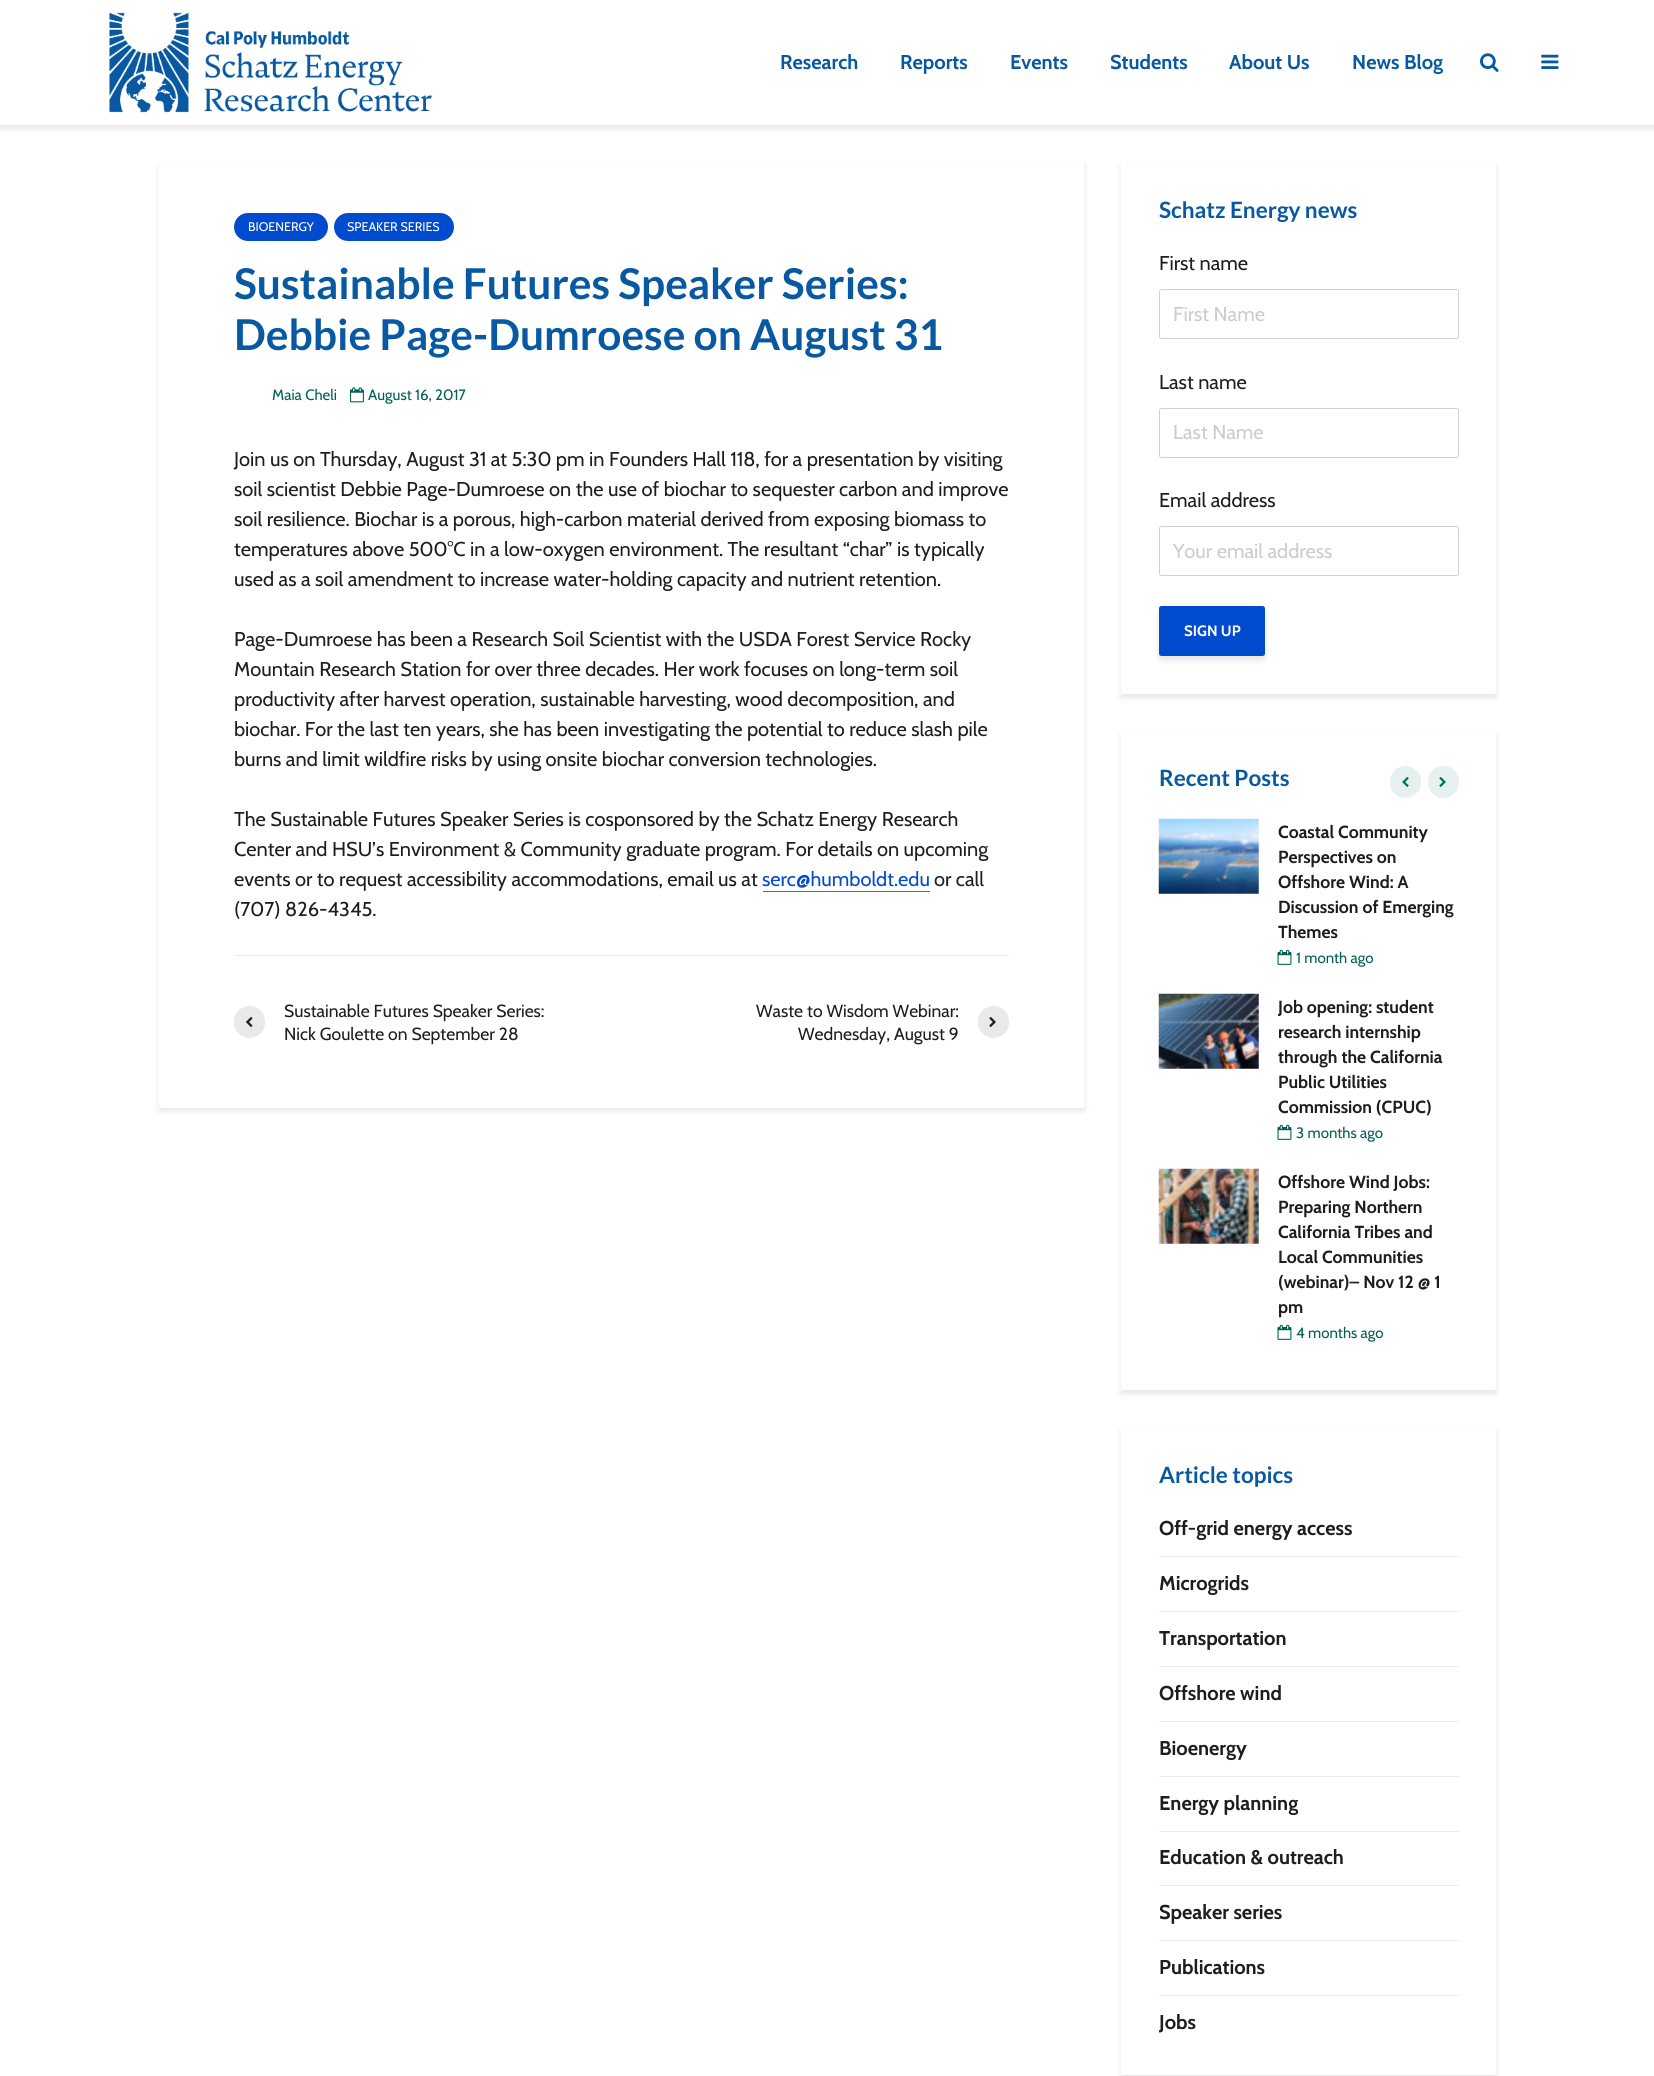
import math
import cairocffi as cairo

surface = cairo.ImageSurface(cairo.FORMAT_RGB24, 1654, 2076)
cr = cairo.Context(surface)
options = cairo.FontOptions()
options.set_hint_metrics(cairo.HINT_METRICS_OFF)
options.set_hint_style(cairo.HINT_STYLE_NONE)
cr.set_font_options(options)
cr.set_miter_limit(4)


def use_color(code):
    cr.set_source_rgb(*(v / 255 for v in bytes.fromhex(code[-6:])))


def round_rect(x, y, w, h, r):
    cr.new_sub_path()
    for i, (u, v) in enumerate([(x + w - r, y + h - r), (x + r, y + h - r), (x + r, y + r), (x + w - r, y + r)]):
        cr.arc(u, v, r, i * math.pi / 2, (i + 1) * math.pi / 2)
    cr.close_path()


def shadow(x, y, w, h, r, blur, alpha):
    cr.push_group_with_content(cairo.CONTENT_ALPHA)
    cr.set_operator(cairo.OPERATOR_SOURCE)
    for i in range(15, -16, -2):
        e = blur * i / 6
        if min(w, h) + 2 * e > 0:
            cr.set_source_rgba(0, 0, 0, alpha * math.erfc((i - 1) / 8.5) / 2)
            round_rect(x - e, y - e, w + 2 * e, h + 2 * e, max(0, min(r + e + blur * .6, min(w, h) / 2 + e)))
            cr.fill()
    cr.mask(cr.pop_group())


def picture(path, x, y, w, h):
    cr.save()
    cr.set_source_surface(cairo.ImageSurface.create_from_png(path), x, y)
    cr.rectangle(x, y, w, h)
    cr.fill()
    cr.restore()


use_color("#ffffff")
cr.paint()
cr.save()
cr.rectangle(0, 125, 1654, 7)
cr.clip()
use_color("#000101")
shadow(0, 4, 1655, 125, 0, 3, 0.1)
cr.restore()
picture("img1.png", 109, 12, 323, 101)
cr.select_font_face("Cabin", cairo.FONT_SLANT_NORMAL, cairo.FONT_WEIGHT_BOLD)
cr.set_font_size(20)
use_color("#0859a1")
cr.move_to(780, 69)
cr.show_text("Research")
cr.move_to(900, 69)
cr.show_text("Reports")
cr.move_to(1010, 69)
cr.show_text("Events")
cr.move_to(1110, 69)
cr.show_text("Students")
cr.move_to(1229, 69)
cr.show_text("About Us")
cr.move_to(1352, 69)
cr.show_text("News Blog")
picture("img2.png", 1480, 53, 19, 19)
picture("img3.png", 1541, 54, 18, 15)
use_color("#000101")
shadow(159, 166, 925, 945, 0, 3, 0.1)
use_color("#ffffff")
cr.rectangle(159, 163, 925, 945)
cr.fill()
use_color("#004bce")
round_rect(234, 213, 94, 28, 14)
cr.fill()
cr.select_font_face("Cabin")
cr.set_font_size(12.5)
use_color("#ffffff")
cr.move_to(248, 231)
cr.show_text("BIOENERGY")
use_color("#004bce")
round_rect(334, 213, 120, 28, 14)
cr.fill()
use_color("#ffffff")
cr.move_to(347, 231)
cr.show_text("SPEAKER SERIES")
cr.select_font_face("Lato", cairo.FONT_SLANT_NORMAL, cairo.FONT_WEIGHT_BOLD)
cr.set_font_size(42.5)
use_color("#0859a1")
cr.move_to(234, 299)
cr.show_text("Sustainable Futures Speaker Series:")
cr.move_to(234, 350)
cr.show_text("Debbie Page-Dumroese on August 31")
cr.select_font_face("Cabin")
cr.set_font_size(15)
use_color("#006052")
cr.move_to(272, 400)
cr.show_text("Maia Cheli")
picture("img4.png", 350, 387, 14, 16)
cr.move_to(368, 400)
cr.show_text("August 16, 2017")
cr.set_font_size(20)
use_color("#1e1e1e")
cr.move_to(234, 466)
cr.show_text("Join us on Thursday, August 31 at 5:30 pm in Founders Hall 118, for a presentation by visiting")
cr.move_to(234, 496)
cr.show_text("soil scientist Debbie Page-Dumroese on the use of biochar to sequester carbon and improve")
cr.move_to(234, 526)
cr.show_text("soil resilience. Biochar is a porous, high-carbon material derived from exposing biomass to")
cr.move_to(234, 556)
cr.show_text("temperatures above 500°C in a low-oxygen environment. The resultant “char” is typically")
cr.move_to(234, 586)
cr.show_text("used as a soil amendment to increase water-holding capacity and nutrient retention.")
cr.move_to(234, 646)
cr.show_text("Page-Dumroese has been a Research Soil Scientist with the USDA Forest Service Rocky")
cr.move_to(234, 676)
cr.show_text("Mountain Research Station for over three decades. Her work focuses on long-term soil")
cr.move_to(234, 706)
cr.show_text("productivity after harvest operation, sustainable harvesting, wood decomposition, and")
cr.move_to(234, 736)
cr.show_text("biochar. For the last ten years, she has been investigating the potential to reduce slash pile")
cr.move_to(234, 766)
cr.show_text("burns and limit wildfire risks by using onsite biochar conversion technologies.")
cr.move_to(234, 826)
cr.show_text("The Sustainable Futures Speaker Series is cosponsored by the Schatz Energy Research")
cr.move_to(234, 856)
cr.show_text("Center and HSU’s Environment & Community graduate program. For details on upcoming")
cr.move_to(234, 886)
cr.show_text("events or to request accessibility accommodations, email us at")
use_color("#004bce")
cr.move_to(762, 886)
cr.show_text("serc@humboldt.edu")
use_color("#336fd8")
cr.rectangle(763, 891, 167, 1)
cr.fill()
use_color("#1e1e1e")
cr.move_to(934, 886)
cr.show_text("or call")
cr.move_to(234, 916)
cr.show_text("(707) 826-4345.")
use_color("#e9e9e9")
cr.rectangle(234, 955, 775, 1)
cr.fill()
round_rect(234, 1006, 31, 32, 15.5)
cr.fill()
picture("img5.png", 246, 1017, 7, 10)
cr.set_font_size(17.5)
use_color("#1e1e1e")
cr.move_to(284, 1017)
cr.show_text("Sustainable Futures Speaker Series:")
cr.move_to(284, 1040)
cr.show_text("Nick Goulette on September 28")
cr.move_to(756, 1017)
cr.show_text("Waste to Wisdom Webinar:")
cr.move_to(798, 1040)
cr.show_text("Wednesday, August 9")
use_color("#e9e9e9")
round_rect(978, 1006, 31, 32, 15.5)
cr.fill()
picture("img6.png", 989, 1017, 7, 10)
use_color("#000101")
shadow(1121, 166, 375, 532, 0, 3, 0.1)
use_color("#ffffff")
cr.rectangle(1121, 163, 375, 531)
cr.fill()
cr.select_font_face("Lato", cairo.FONT_SLANT_NORMAL, cairo.FONT_WEIGHT_BOLD)
cr.set_font_size(22.5)
use_color("#0859a1")
cr.move_to(1159, 218)
cr.show_text("Schatz Energy news")
cr.select_font_face("Cabin")
cr.set_font_size(20)
use_color("#1e1e1e")
cr.move_to(1159, 270)
cr.show_text("First name")
round_rect(1159.5, 289.5, 299, 49, 2)
use_color("#d2d2d2")
cr.set_line_width(1)
cr.stroke()
use_color("#cccccc")
cr.move_to(1173, 321)
cr.show_text("First Name")
use_color("#1e1e1e")
cr.move_to(1159, 389)
cr.show_text("Last name")
round_rect(1159.5, 408.5, 299, 49, 2)
use_color("#d2d2d2")
cr.stroke()
use_color("#cccccc")
cr.move_to(1173, 439)
cr.show_text("Last Name")
use_color("#1e1e1e")
cr.move_to(1159, 507)
cr.show_text("Email address")
round_rect(1159.5, 526.5, 299, 49, 2)
use_color("#d2d2d2")
cr.stroke()
use_color("#cccccc")
cr.move_to(1173, 558)
cr.show_text("Your email address")
use_color("#000000")
shadow(1159, 610, 106, 50, 2.5, 3, 0.1)
use_color("#004bce")
round_rect(1159, 606, 106, 50, 2.5)
cr.fill()
cr.select_font_face("Cabin", cairo.FONT_SLANT_NORMAL, cairo.FONT_WEIGHT_BOLD)
cr.set_font_size(15)
use_color("#ffffff")
cr.move_to(1184, 636)
cr.show_text("SIGN UP")
use_color("#000101")
shadow(1121, 735, 375, 659, 0, 3, 0.1)
use_color("#ffffff")
cr.rectangle(1121, 731, 375, 659)
cr.fill()
cr.select_font_face("Lato", cairo.FONT_SLANT_NORMAL, cairo.FONT_WEIGHT_BOLD)
cr.set_font_size(22.5)
use_color("#0859a1")
cr.move_to(1159, 786)
cr.show_text("Recent Posts")
use_color("#e6f1ef")
round_rect(1390, 766, 31, 32, 15.5)
cr.fill()
picture("img7.png", 1402, 777, 7, 10)
round_rect(1428, 766, 31, 32, 15.5)
cr.fill()
picture("img8.png", 1439, 777, 7, 10)
picture("img9.png", 1158, 818, 101, 76)
cr.select_font_face("Cabin", cairo.FONT_SLANT_NORMAL, cairo.FONT_WEIGHT_BOLD)
cr.set_font_size(17.5)
use_color("#1e1e1e")
cr.move_to(1278, 838)
cr.show_text("Coastal Community")
cr.move_to(1278, 863)
cr.show_text("Perspectives on")
cr.move_to(1278, 888)
cr.show_text("Offshore Wind: A")
cr.move_to(1278, 913)
cr.show_text("Discussion of Emerging")
cr.move_to(1278, 938)
cr.show_text("Themes")
picture("img10.png", 1277, 949, 15, 16)
cr.select_font_face("Cabin")
cr.set_font_size(15)
use_color("#006052")
cr.move_to(1296, 963)
cr.show_text("1 month ago")
picture("img11.png", 1158, 993, 101, 76)
cr.select_font_face("Cabin", cairo.FONT_SLANT_NORMAL, cairo.FONT_WEIGHT_BOLD)
cr.set_font_size(17.5)
use_color("#1e1e1e")
cr.move_to(1278, 1013)
cr.show_text("Job opening: student")
cr.move_to(1278, 1038)
cr.show_text("research internship")
cr.move_to(1278, 1063)
cr.show_text("through the California")
cr.move_to(1278, 1088)
cr.show_text("Public Utilities")
cr.move_to(1278, 1113)
cr.show_text("Commission (CPUC)")
picture("img10.png", 1277, 1124, 15, 16)
cr.select_font_face("Cabin")
cr.set_font_size(15)
use_color("#006052")
cr.move_to(1296, 1138)
cr.show_text("3 months ago")
picture("img12.png", 1158, 1168, 101, 76)
cr.select_font_face("Cabin", cairo.FONT_SLANT_NORMAL, cairo.FONT_WEIGHT_BOLD)
cr.set_font_size(17.5)
use_color("#1e1e1e")
cr.move_to(1278, 1188)
cr.show_text("Offshore Wind Jobs:")
cr.move_to(1278, 1213)
cr.show_text("Preparing Northern")
cr.move_to(1278, 1238)
cr.show_text("California Tribes and")
cr.move_to(1278, 1263)
cr.show_text("Local Communities")
cr.move_to(1278, 1288)
cr.show_text("(webinar)– Nov 12 @ 1")
cr.move_to(1278, 1313)
cr.show_text("pm")
picture("img10.png", 1277, 1324, 15, 16)
cr.select_font_face("Cabin")
cr.set_font_size(15)
use_color("#006052")
cr.move_to(1296, 1338)
cr.show_text("4 months ago")
use_color("#000101")
shadow(1121, 1431, 375, 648, 0, 3, 0.1)
use_color("#ffffff")
cr.rectangle(1121, 1428, 375, 647)
cr.fill()
cr.select_font_face("Lato", cairo.FONT_SLANT_NORMAL, cairo.FONT_WEIGHT_BOLD)
cr.set_font_size(22.5)
use_color("#0859a1")
cr.move_to(1159, 1483)
cr.show_text("Article topics")
use_color("#e9e9e9")
cr.rectangle(1159, 1556, 300, 1)
cr.fill()
cr.select_font_face("Cabin", cairo.FONT_SLANT_NORMAL, cairo.FONT_WEIGHT_BOLD)
cr.set_font_size(20)
use_color("#1e1e1e")
cr.move_to(1159, 1535)
cr.show_text("Off-grid energy access")
use_color("#e9e9e9")
cr.rectangle(1159, 1611, 300, 1)
cr.fill()
use_color("#1e1e1e")
cr.move_to(1159, 1590)
cr.show_text("Microgrids")
use_color("#e9e9e9")
cr.rectangle(1159, 1666, 300, 1)
cr.fill()
use_color("#1e1e1e")
cr.move_to(1159, 1645)
cr.show_text("Transportation")
use_color("#e9e9e9")
cr.rectangle(1159, 1721, 300, 1)
cr.fill()
use_color("#1e1e1e")
cr.move_to(1159, 1700)
cr.show_text("Offshore wind")
use_color("#e9e9e9")
cr.rectangle(1159, 1776, 300, 1)
cr.fill()
use_color("#1e1e1e")
cr.move_to(1159, 1755)
cr.show_text("Bioenergy")
use_color("#e9e9e9")
cr.rectangle(1159, 1831, 300, 1)
cr.fill()
use_color("#1e1e1e")
cr.move_to(1159, 1810)
cr.show_text("Energy planning")
use_color("#e9e9e9")
cr.rectangle(1159, 1885, 300, 1)
cr.fill()
use_color("#1e1e1e")
cr.move_to(1159, 1864)
cr.show_text("Education & outreach")
use_color("#e9e9e9")
cr.rectangle(1159, 1940, 300, 1)
cr.fill()
use_color("#1e1e1e")
cr.move_to(1159, 1919)
cr.show_text("Speaker series")
use_color("#e9e9e9")
cr.rectangle(1159, 1995, 300, 1)
cr.fill()
use_color("#1e1e1e")
cr.move_to(1159, 1974)
cr.show_text("Publications")
cr.move_to(1159, 2029)
cr.show_text("Jobs")
surface.write_to_png("result.png")
